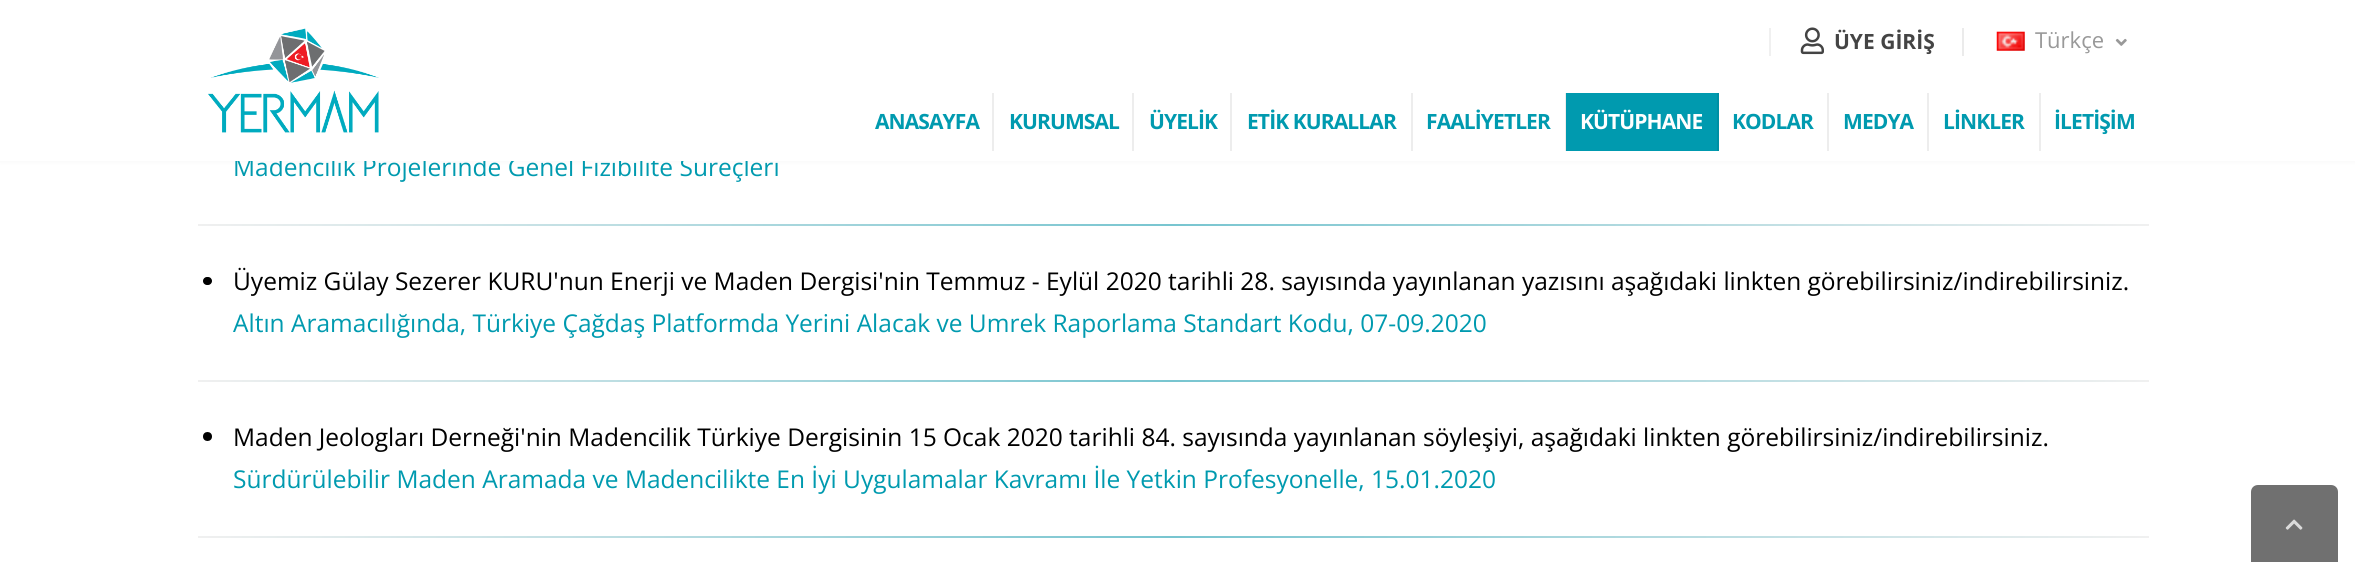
import math
import cairocffi as cairo

surface = cairo.ImageSurface(cairo.FORMAT_RGB24, 2355, 562)
cr = cairo.Context(surface)
options = cairo.FontOptions()
options.set_hint_metrics(cairo.HINT_METRICS_OFF)
options.set_hint_style(cairo.HINT_STYLE_NONE)
cr.set_font_options(options)
cr.set_miter_limit(4)


def use_color(code):
    cr.set_source_rgb(*(v / 255 for v in bytes.fromhex(code[-6:])))


def spaced_text(x, y, s, letter, word):
    cr.move_to(x, y)
    for ch in s:
        cr.show_text(ch)
        cr.rel_move_to(letter + word * (ch == ' '), 0)


def round_rect(x, y, w, h, r):
    cr.new_sub_path()
    for i, (u, v) in enumerate([(x + w - r, y + h - r), (x + r, y + h - r), (x + r, y + r), (x + w - r, y + r)]):
        cr.arc(u, v, r, i * math.pi / 2, (i + 1) * math.pi / 2)
    cr.close_path()


def shadow(x, y, w, h, r, blur, alpha):
    cr.push_group_with_content(cairo.CONTENT_ALPHA)
    cr.set_operator(cairo.OPERATOR_SOURCE)
    for i in range(15, -16, -2):
        e = blur * i / 6
        if min(w, h) + 2 * e > 0:
            cr.set_source_rgba(0, 0, 0, alpha * math.erfc((i - 1) / 8.5) / 2)
            round_rect(x - e, y - e, w + 2 * e, h + 2 * e, max(0, min(r + e + blur * .6, min(w, h) / 2 + e)))
            cr.fill()
    cr.mask(cr.pop_group())


def picture(path, x, y, w, h):
    cr.save()
    cr.set_source_surface(cairo.ImageSurface.create_from_png(path), x, y)
    cr.rectangle(x, y, w, h)
    cr.fill()
    cr.restore()


use_color("#ffffff")
cr.paint()
use_color("#eaeaea")
shadow(0, 0, 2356, 161, 0, 2.5, 0.5)
cr.select_font_face("Open Sans")
cr.set_font_size(24.5)
use_color("#009aaf")
cr.move_to(233, 176)
cr.show_text("Madencilik Projelerinde Genel Fizibilite Süreçleri")
use_color("#ffffff")
cr.rectangle(0, 0, 2355, 161)
cr.fill()
picture("img1.png", 208, 28, 171, 105)
use_color("#f0f0f0")
cr.rectangle(1769, 28, 2, 28)
cr.fill()
picture("img2.png", 1800, 27, 24, 28)
cr.select_font_face("Open Sans", cairo.FONT_SLANT_NORMAL, cairo.FONT_WEIGHT_BOLD)
cr.set_font_size(21)
use_color("#444444")
cr.move_to(1834, 49)
cr.show_text("ÜYE GİRİŞ")
use_color("#ebebeb")
cr.rectangle(1962, 28, 2, 28)
cr.fill()
picture("img3.png", 1996, 31, 29, 20)
cr.select_font_face("Open Sans")
cr.set_font_size(22)
use_color("#999999")
cr.move_to(2035, 48)
cr.show_text("Türkçe")
picture("img4.png", 2115, 38, 12, 8)
use_color("#ededed")
cr.rectangle(992, 93, 2, 58)
cr.fill()
cr.select_font_face("Open Sans", cairo.FONT_SLANT_NORMAL, cairo.FONT_WEIGHT_BOLD)
cr.set_font_size(21)
use_color("#009aaf")
spaced_text(875, 129, "ANASAYFA", -0.9, 0)
use_color("#ededed")
cr.rectangle(1132, 93, 2, 58)
cr.fill()
use_color("#009aaf")
spaced_text(1009, 129, "KURUMSAL", -0.9, 0)
use_color("#ededed")
cr.rectangle(1230, 93, 2, 58)
cr.fill()
use_color("#009aaf")
spaced_text(1149, 129, "ÜYELİK", -0.9, 0)
use_color("#ededed")
cr.rectangle(1411, 93, 2, 58)
cr.fill()
use_color("#009aaf")
spaced_text(1247, 129, "ETİK KURALLAR", -0.9, 0)
use_color("#ededed")
cr.rectangle(1565, 93, 1, 58)
cr.fill()
use_color("#009aaf")
spaced_text(1426, 129, "FAALİYETLER", -0.9, 0)
cr.rectangle(1566, 93, 151, 58)
cr.fill()
use_color("#008fa3")
cr.rectangle(1717, 93, 2, 58)
cr.fill()
use_color("#ffffff")
spaced_text(1580, 129, "KÜTÜPHANE", -0.9, 0)
use_color("#ededed")
cr.rectangle(1827, 93, 2, 58)
cr.fill()
use_color("#009aaf")
spaced_text(1732, 129, "KODLAR", -0.9, 0)
use_color("#ededed")
cr.rectangle(1927, 93, 2, 58)
cr.fill()
use_color("#009aaf")
spaced_text(1843, 129, "MEDYA", -0.9, 0)
use_color("#ededed")
cr.rectangle(2039, 93, 2, 58)
cr.fill()
use_color("#009aaf")
spaced_text(1943, 129, "LİNKLER", -0.9, 0)
spaced_text(2054, 129, "İLETİŞİM", -0.9, 0)
gradient = cairo.LinearGradient(2149, 225, 198, 225)
gradient.add_color_stop_rgba(0, 0.941, 0.941, 0.941, 1)
gradient.add_color_stop_rgba(0.5, 0.471, 0.773, 0.816, 1)
gradient.add_color_stop_rgba(1, 0.941, 0.941, 0.941, 1)
cr.set_source(gradient)
cr.rectangle(198, 224, 1951, 2)
cr.fill()
use_color("#000000")
round_rect(203, 277, 9, 8, 4)
cr.fill()
cr.select_font_face("Open Sans")
cr.set_font_size(24.5)
cr.move_to(233, 290)
cr.show_text("Üyemiz Gülay Sezerer KURU'nun Enerji ve Maden Dergisi'nin Temmuz - Eylül 2020 tarihli 28. sayısında yayınlanan yazısını aşağıdaki linkten görebilirsiniz/indirebilirsiniz.")
use_color("#009aaf")
cr.move_to(233, 332)
cr.show_text("Altın Aramacılığında, Türkiye Çağdaş Platformda Yerini Alacak ve Umrek Raporlama Standart Kodu, 07-09.2020")
gradient = cairo.LinearGradient(2149, 381, 198, 381)
gradient.add_color_stop_rgba(0, 0.941, 0.941, 0.941, 1)
gradient.add_color_stop_rgba(0.5, 0.471, 0.773, 0.816, 1)
gradient.add_color_stop_rgba(1, 0.941, 0.941, 0.941, 1)
cr.set_source(gradient)
cr.rectangle(198, 380, 1951, 2)
cr.fill()
use_color("#000000")
cr.arc(207.5, 436.5, 4.5, 0, 2 * math.pi)
cr.fill()
cr.move_to(233, 446)
cr.show_text("Maden Jeologları Derneği'nin Madencilik Türkiye Dergisinin 15 Ocak 2020 tarihli 84. sayısında yayınlanan söyleşiyi, aşağıdaki linkten görebilirsiniz/indirebilirsiniz.")
use_color("#009aaf")
cr.move_to(233, 488)
cr.show_text("Sürdürülebilir Maden Aramada ve Madencilikte En İyi Uygulamalar Kavramı İle Yetkin Profesyonelle, 15.01.2020")
gradient = cairo.LinearGradient(2149, 536, 198, 536)
gradient.add_color_stop_rgba(0, 0.941, 0.941, 0.941, 1)
gradient.add_color_stop_rgba(0.5, 0.471, 0.773, 0.816, 1)
gradient.add_color_stop_rgba(1, 0.941, 0.941, 0.941, 1)
cr.set_source(gradient)
cr.rectangle(198, 536, 1951, 2)
cr.fill()
use_color("#707070")
cr.new_path()
cr.move_to(2258, 485)
cr.line_to(2331, 485)
cr.curve_to(2335, 485, 2338, 488, 2338, 492)
cr.line_to(2338, 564)
cr.line_to(2251, 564)
cr.line_to(2251, 492)
cr.curve_to(2251, 488, 2254, 485, 2258, 485)
cr.close_path()
cr.fill()
picture("img5.png", 2285, 519, 18, 11)
surface.write_to_png("result.png")
